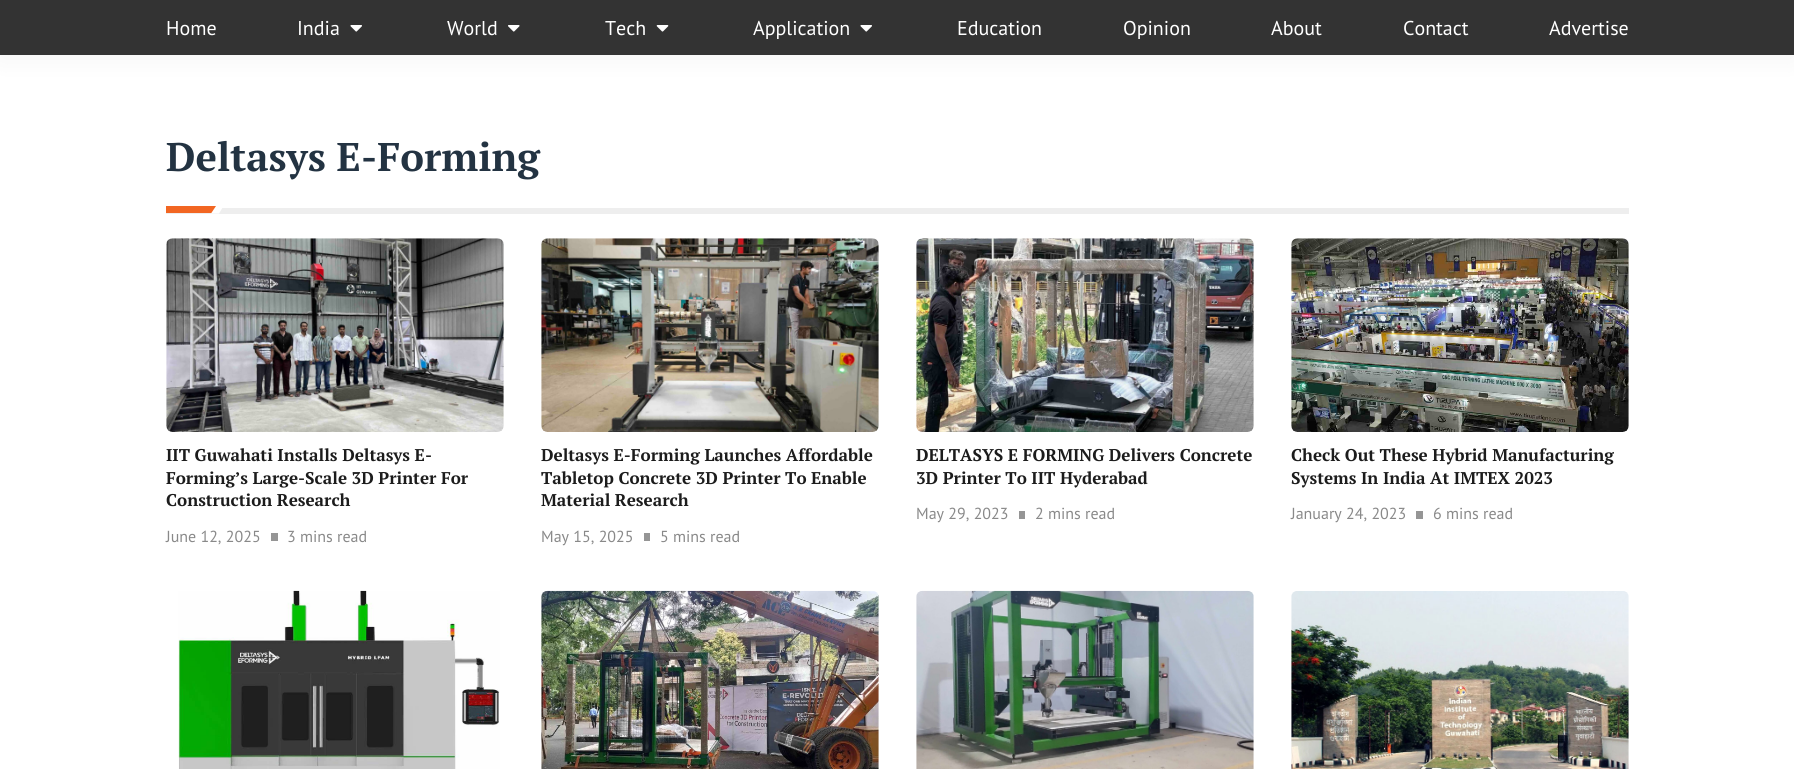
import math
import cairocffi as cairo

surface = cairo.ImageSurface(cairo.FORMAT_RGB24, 1794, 769)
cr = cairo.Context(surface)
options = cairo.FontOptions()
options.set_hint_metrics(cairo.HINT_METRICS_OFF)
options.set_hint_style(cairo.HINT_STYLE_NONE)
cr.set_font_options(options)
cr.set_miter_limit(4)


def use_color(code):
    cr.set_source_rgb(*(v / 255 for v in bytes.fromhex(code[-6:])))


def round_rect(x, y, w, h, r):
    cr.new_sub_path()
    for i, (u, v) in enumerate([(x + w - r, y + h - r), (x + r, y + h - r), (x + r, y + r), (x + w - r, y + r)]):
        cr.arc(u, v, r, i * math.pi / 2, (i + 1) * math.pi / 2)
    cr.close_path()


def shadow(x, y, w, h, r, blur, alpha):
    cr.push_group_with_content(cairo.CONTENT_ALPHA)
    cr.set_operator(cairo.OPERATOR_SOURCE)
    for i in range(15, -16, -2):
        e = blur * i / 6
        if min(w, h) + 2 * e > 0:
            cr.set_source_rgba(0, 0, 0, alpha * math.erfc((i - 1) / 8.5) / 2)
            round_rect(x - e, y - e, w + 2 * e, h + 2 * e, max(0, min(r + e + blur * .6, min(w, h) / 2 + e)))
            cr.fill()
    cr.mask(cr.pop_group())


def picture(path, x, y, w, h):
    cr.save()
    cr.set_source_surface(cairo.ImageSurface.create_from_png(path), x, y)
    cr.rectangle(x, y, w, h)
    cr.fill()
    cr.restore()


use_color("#ffffff")
cr.paint()
use_color("#000000")
shadow(1, 5, 1793, 53, 0, 12.5, 0.05)
use_color("#333333")
cr.rectangle(0, 0, 1794, 55)
cr.fill()
cr.select_font_face("PT Sans")
cr.set_font_size(20)
use_color("#ffffff")
cr.move_to(166, 35)
cr.show_text("Home")
cr.move_to(297, 35)
cr.show_text("India")
picture("img1.png", 350, 25, 12, 7)
cr.move_to(447, 35)
cr.show_text("World")
picture("img2.png", 508, 25, 12, 7)
cr.move_to(605, 35)
cr.show_text("Tech")
picture("img3.png", 656, 25, 13, 7)
cr.move_to(753, 35)
cr.show_text("Application")
picture("img1.png", 860, 25, 12, 7)
cr.move_to(957, 35)
cr.show_text("Education")
cr.move_to(1123, 35)
cr.show_text("Opinion")
cr.move_to(1271, 35)
cr.show_text("About")
cr.move_to(1403, 35)
cr.show_text("Contact")
cr.move_to(1549, 35)
cr.show_text("Advertise")
cr.select_font_face("PT Serif", cairo.FONT_SLANT_NORMAL, cairo.FONT_WEIGHT_BOLD)
cr.set_font_size(40)
use_color("#233342")
cr.move_to(166, 171)
cr.show_text("Deltasys E-Forming")
use_color("#eeeeee")
cr.rectangle(220, 208, 1409, 3)
cr.fill()
cr.rectangle(166, 211, 1463, 3)
cr.fill()
use_color("#f26622")
cr.rectangle(166, 206, 50, 7)
cr.fill()
use_color("#ffffff")
cr.new_path()
cr.move_to(223.5, 206)
cr.line_to(219, 213.5)
cr.line_to(211, 213.5)
cr.line_to(216, 206)
cr.close_path()
cr.fill()
picture("img4.png", 166, 238, 338, 194)
cr.set_font_size(17)
use_color("#1c1c1c")
cr.move_to(166, 461)
cr.show_text("IIT Guwahati Installs Deltasys E-")
cr.move_to(166, 484)
cr.show_text("Forming’s Large-Scale 3D Printer For")
cr.move_to(166, 506)
cr.show_text("Construction Research")
cr.select_font_face("PT Sans")
cr.set_font_size(16)
use_color("#898989")
cr.move_to(166, 542)
cr.show_text("June 12, 2025")
use_color("#959595")
cr.rectangle(271, 533, 7, 8)
cr.fill()
use_color("#898989")
cr.move_to(287, 542)
cr.show_text("3 mins read")
picture("img5.png", 541, 238, 338, 194)
cr.select_font_face("PT Serif", cairo.FONT_SLANT_NORMAL, cairo.FONT_WEIGHT_BOLD)
cr.set_font_size(17)
use_color("#1c1c1c")
cr.move_to(541, 461)
cr.show_text("Deltasys E-Forming Launches Affordable")
cr.move_to(541, 484)
cr.show_text("Tabletop Concrete 3D Printer To Enable")
cr.move_to(541, 506)
cr.show_text("Material Research")
cr.select_font_face("PT Sans")
cr.set_font_size(16)
use_color("#898989")
cr.move_to(541, 542)
cr.show_text("May 15, 2025")
use_color("#959595")
cr.rectangle(644, 533, 6, 8)
cr.fill()
use_color("#898989")
cr.move_to(660, 542)
cr.show_text("5 mins read")
picture("img6.png", 916, 238, 338, 194)
cr.select_font_face("PT Serif", cairo.FONT_SLANT_NORMAL, cairo.FONT_WEIGHT_BOLD)
cr.set_font_size(17)
use_color("#1c1c1c")
cr.move_to(916, 461)
cr.show_text("DELTASYS E FORMING Delivers Concrete")
cr.move_to(916, 484)
cr.show_text("3D Printer To IIT Hyderabad")
cr.select_font_face("PT Sans")
cr.set_font_size(16)
use_color("#898989")
cr.move_to(916, 519)
cr.show_text("May 29, 2023")
use_color("#959595")
cr.rectangle(1019, 511, 6, 8)
cr.fill()
use_color("#898989")
cr.move_to(1035, 519)
cr.show_text("2 mins read")
picture("img7.png", 1291, 238, 338, 194)
cr.select_font_face("PT Serif", cairo.FONT_SLANT_NORMAL, cairo.FONT_WEIGHT_BOLD)
cr.set_font_size(17)
use_color("#1c1c1c")
cr.move_to(1291, 461)
cr.show_text("Check Out These Hybrid Manufacturing")
cr.move_to(1291, 484)
cr.show_text("Systems In India At IMTEX 2023")
cr.select_font_face("PT Sans")
cr.set_font_size(16)
use_color("#898989")
cr.move_to(1291, 519)
cr.show_text("January 24, 2023")
use_color("#959595")
cr.rectangle(1416, 511, 7, 8)
cr.fill()
use_color("#898989")
cr.move_to(1433, 519)
cr.show_text("6 mins read")
picture("img8.png", 178, 590, 322, 179)
picture("img9.png", 541, 590, 338, 179)
picture("img10.png", 916, 590, 338, 179)
picture("img11.png", 1291, 591, 338, 178)
surface.write_to_png("result.png")
